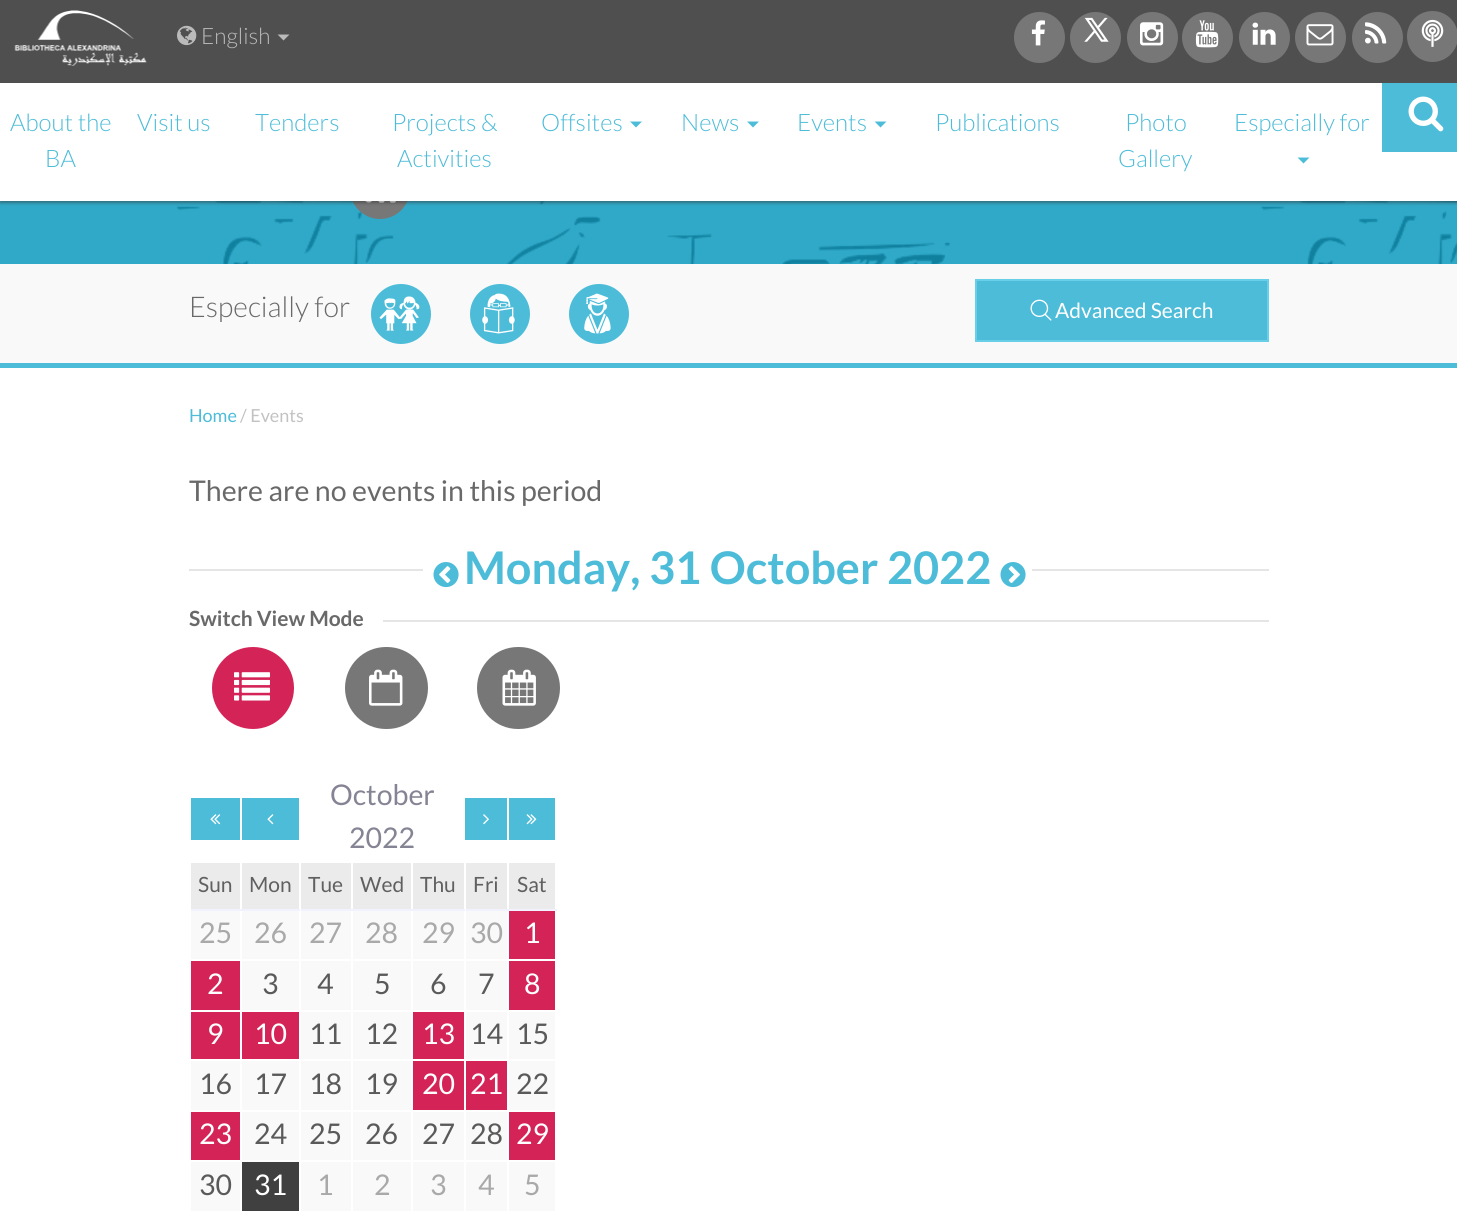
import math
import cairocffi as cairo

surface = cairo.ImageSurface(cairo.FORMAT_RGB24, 1457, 1222)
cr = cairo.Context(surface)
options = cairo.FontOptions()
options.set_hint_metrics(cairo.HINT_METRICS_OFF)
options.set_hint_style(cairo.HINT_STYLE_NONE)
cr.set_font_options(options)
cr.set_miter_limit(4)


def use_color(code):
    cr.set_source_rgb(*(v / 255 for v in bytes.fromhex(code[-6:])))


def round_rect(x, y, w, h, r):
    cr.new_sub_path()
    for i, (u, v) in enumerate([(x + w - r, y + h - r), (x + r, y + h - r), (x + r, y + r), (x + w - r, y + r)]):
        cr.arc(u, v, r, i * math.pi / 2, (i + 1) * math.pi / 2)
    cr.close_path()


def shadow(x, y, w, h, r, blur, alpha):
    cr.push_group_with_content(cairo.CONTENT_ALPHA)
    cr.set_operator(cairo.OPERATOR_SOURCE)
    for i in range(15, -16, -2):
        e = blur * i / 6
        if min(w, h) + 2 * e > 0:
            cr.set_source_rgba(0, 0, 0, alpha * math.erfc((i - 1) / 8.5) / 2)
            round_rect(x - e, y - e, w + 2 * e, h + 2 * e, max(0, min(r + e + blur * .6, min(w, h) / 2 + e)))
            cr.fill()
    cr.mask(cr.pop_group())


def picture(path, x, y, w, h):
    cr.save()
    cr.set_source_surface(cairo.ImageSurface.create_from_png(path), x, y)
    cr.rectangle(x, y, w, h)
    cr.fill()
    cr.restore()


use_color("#ffffff")
cr.paint()
use_color("#30a9c8")
cr.rectangle(0, 201, 1457, 63)
cr.fill()
picture("img12.png", 176, 201, 1281, 63)
use_color("#777777")
cr.arc(380, 189, 30, 0, 2 * math.pi)
cr.fill()
picture("img13.png", 365, 201, 31, 2)
use_color("#323232")
shadow(0, 2, 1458, 201, 0, 1.5, 0.5)
use_color("#ffffff")
cr.rectangle(0, 83, 1457, 118)
cr.fill()
use_color("#4f4f4f")
cr.rectangle(0, 0, 1457, 83)
cr.fill()
picture("img1.png", 14, 10, 133, 56)
picture("img2.png", 177, 25, 20, 21)
cr.select_font_face("Lato Light")
cr.set_font_size(22.5)
use_color("#bababa")
cr.move_to(201, 44)
cr.show_text("English")
cr.new_path()
cr.move_to(277.5, 34.5)
cr.line_to(289.5, 34.5)
cr.line_to(283.5, 40.5)
cr.close_path()
cr.fill()
use_color("#777777")
cr.arc(1039.5, 37.5, 25.5, 0, 2 * math.pi)
cr.fill()
picture("img3.png", 1031, 20, 14, 26)
cr.arc(1095.5, 37.5, 25.5, 0, 2 * math.pi)
cr.fill()
picture("img4.png", 1084, 17, 25, 25)
cr.arc(1152.5, 37.5, 25.5, 0, 2 * math.pi)
cr.fill()
picture("img5.png", 1140, 22, 24, 24)
cr.arc(1207.5, 37.5, 25.5, 0, 2 * math.pi)
cr.fill()
picture("img6.png", 1195, 20, 24, 28)
cr.arc(1264.5, 37.5, 25.5, 0, 2 * math.pi)
cr.fill()
picture("img7.png", 1252, 22, 24, 23)
cr.arc(1320.5, 37.5, 25.5, 0, 2 * math.pi)
cr.fill()
picture("img8.png", 1306, 24, 28, 22)
cr.arc(1377.5, 37.5, 25.5, 0, 2 * math.pi)
cr.fill()
picture("img9.png", 1365, 22, 22, 22)
cr.arc(1432.5, 36.5, 25.5, 0, 2 * math.pi)
cr.fill()
picture("img10.png", 1421, 19, 23, 28)
cr.set_font_size(24)
use_color("#4dbcd8")
cr.move_to(10, 131)
cr.show_text("About the")
cr.move_to(45, 167)
cr.show_text("BA")
cr.move_to(137, 131)
cr.show_text("Visit us")
cr.move_to(255, 131)
cr.show_text("Tenders")
cr.move_to(392, 131)
cr.show_text("Projects &")
cr.move_to(397, 167)
cr.show_text("Activities")
cr.move_to(541, 131)
cr.show_text("Offsites")
cr.new_path()
cr.move_to(630, 121.5)
cr.line_to(642, 121.5)
cr.line_to(636, 127.5)
cr.close_path()
cr.fill()
cr.move_to(681, 131)
cr.show_text("News")
cr.new_path()
cr.move_to(747, 121.5)
cr.line_to(759, 121.5)
cr.line_to(753, 127.5)
cr.close_path()
cr.fill()
cr.move_to(797, 131)
cr.show_text("Events")
cr.new_path()
cr.move_to(874.5, 121.5)
cr.line_to(886.5, 121.5)
cr.line_to(880.5, 127.5)
cr.close_path()
cr.fill()
cr.move_to(935, 131)
cr.show_text("Publications")
cr.move_to(1125, 131)
cr.show_text("Photo")
cr.move_to(1118, 167)
cr.show_text("Gallery")
cr.move_to(1234, 131)
cr.show_text("Especially for")
cr.new_path()
cr.move_to(1297.5, 157.5)
cr.line_to(1309.5, 157.5)
cr.line_to(1303.5, 163.5)
cr.close_path()
cr.fill()
cr.rectangle(1382, 83, 75, 69)
cr.fill()
picture("img11.png", 1408, 96, 36, 36)
use_color("#f9f9f9")
cr.rectangle(0, 264, 1457, 99)
cr.fill()
use_color("#4dbcd8")
cr.rectangle(0, 363, 1457, 5)
cr.fill()
cr.set_font_size(28.5)
use_color("#696969")
cr.move_to(189, 317)
cr.show_text("Especially for")
use_color("#4dbcd8")
cr.new_path()
cr.arc(401, 314, 30, 0, 2 * math.pi)
cr.fill()
picture("img14.png", 379, 296, 41, 35)
cr.arc(500, 314, 30, 0, 2 * math.pi)
cr.fill()
picture("img15.png", 482, 293, 33, 41)
cr.arc(599, 314, 30, 0, 2 * math.pi)
cr.fill()
picture("img16.png", 584, 293, 27, 41)
cr.rectangle(976, 280, 292, 61)
cr.fill_preserve()
use_color("#69cee7")
cr.stroke()
picture("img17.png", 1030, 299, 22, 22)
cr.select_font_face("Lato")
cr.set_font_size(21)
use_color("#ffffff")
cr.move_to(1055, 318)
cr.show_text("Advanced Search")
cr.set_font_size(18)
use_color("#4dbcd8")
cr.move_to(189, 422)
cr.show_text("Home")
use_color("#c2c2c2")
cr.move_to(240, 422)
cr.show_text("/ Events")
cr.set_font_size(28.5)
use_color("#696969")
cr.move_to(189, 501)
cr.show_text("There are no events in this period")
picture("img18.png", 433, 562, 26, 26)
use_color("#e5e5e5")
cr.rectangle(189, 569, 234, 2)
cr.fill()
cr.select_font_face("Lato", cairo.FONT_SLANT_NORMAL, cairo.FONT_WEIGHT_BOLD)
cr.set_font_size(45)
use_color("#4dbcd8")
cr.move_to(464, 584)
cr.show_text("Monday, 31 October 2022")
use_color("#e5e5e5")
cr.rectangle(1032, 569, 237, 2)
cr.fill()
picture("img19.png", 1000, 562, 26, 26)
cr.set_font_size(21)
use_color("#696969")
cr.move_to(189, 626)
cr.show_text("Switch View Mode")
use_color("#e5e5e5")
cr.rectangle(383, 620, 886, 2)
cr.fill()
use_color("#d42357")
cr.arc(253, 688, 41, 0, 2 * math.pi)
cr.fill()
picture("img20.png", 234, 672, 36, 29)
use_color("#777777")
round_rect(345, 647, 83, 82, 41)
cr.fill()
picture("img21.png", 369, 669, 34, 37)
round_rect(477, 647, 83, 82, 41)
cr.fill()
picture("img22.png", 502, 669, 34, 37)
use_color("#4dbcd8")
cr.rectangle(191, 798, 49, 42)
cr.fill()
picture("img23.png", 210, 814, 11, 11)
cr.rectangle(242, 798, 57, 42)
cr.fill()
picture("img24.png", 267, 814, 7, 11)
cr.select_font_face("Lato")
cr.set_font_size(28.5)
use_color("#848494")
cr.move_to(330, 805)
cr.show_text("October")
cr.move_to(349, 848)
cr.show_text("2022")
use_color("#4dbcd8")
cr.rectangle(465, 798, 42, 42)
cr.fill()
picture("img25.png", 483, 814, 6, 11)
cr.rectangle(509, 798, 46, 42)
cr.fill()
picture("img26.png", 526, 814, 11, 11)
use_color("#ebebeb")
cr.rectangle(191, 863, 364, 46)
cr.fill()
use_color("#f2f2fe")
cr.rectangle(507, 909, 50, 2)
cr.fill()
use_color("#ffffff")
cr.rectangle(507, 861, 2, 50)
cr.fill()
use_color("#f2f2fe")
cr.rectangle(464, 909, 45, 2)
cr.fill()
use_color("#ffffff")
cr.rectangle(464, 861, 2, 50)
cr.fill()
use_color("#f2f2fe")
cr.rectangle(411, 909, 54, 2)
cr.fill()
use_color("#ffffff")
cr.rectangle(411, 861, 2, 50)
cr.fill()
use_color("#f2f2fe")
cr.rectangle(351, 909, 62, 2)
cr.fill()
use_color("#ffffff")
cr.rectangle(351, 861, 2, 50)
cr.fill()
use_color("#f2f2fe")
cr.rectangle(299, 909, 54, 2)
cr.fill()
use_color("#ffffff")
cr.rectangle(299, 861, 2, 50)
cr.fill()
use_color("#f2f2fe")
cr.rectangle(240, 909, 60, 2)
cr.fill()
use_color("#ffffff")
cr.rectangle(240, 861, 2, 50)
cr.fill()
use_color("#f2f2fe")
cr.rectangle(189, 909, 53, 2)
cr.fill()
use_color("#ffffff")
cr.rectangle(189, 909, 2, 2)
cr.fill()
cr.set_font_size(21)
use_color("#606062")
cr.move_to(198, 892)
cr.show_text("Sun")
cr.move_to(249, 892)
cr.show_text("Mon")
cr.move_to(308, 892)
cr.show_text("Tue")
cr.move_to(360, 892)
cr.show_text("Wed")
cr.move_to(420, 892)
cr.show_text("Thu")
cr.move_to(473, 892)
cr.show_text("Fri")
cr.move_to(517, 892)
cr.show_text("Sat")
use_color("#f9f9f9")
cr.rectangle(191, 911, 49, 48)
cr.fill()
cr.set_font_size(28.5)
use_color("#a9a9a9")
cr.move_to(199, 943)
cr.show_text("25")
use_color("#f9f9f9")
cr.rectangle(242, 911, 57, 48)
cr.fill()
use_color("#a9a9a9")
cr.move_to(254, 943)
cr.show_text("26")
use_color("#f9f9f9")
cr.rectangle(301, 911, 50, 48)
cr.fill()
use_color("#a9a9a9")
cr.move_to(309, 943)
cr.show_text("27")
use_color("#f9f9f9")
cr.rectangle(353, 911, 58, 48)
cr.fill()
use_color("#a9a9a9")
cr.move_to(365, 943)
cr.show_text("28")
use_color("#f9f9f9")
cr.rectangle(413, 911, 51, 48)
cr.fill()
use_color("#a9a9a9")
cr.move_to(422, 943)
cr.show_text("29")
use_color("#f9f9f9")
cr.rectangle(466, 911, 41, 48)
cr.fill()
use_color("#a9a9a9")
cr.move_to(470, 943)
cr.show_text("30")
use_color("#d42357")
cr.rectangle(509, 911, 46, 48)
cr.fill()
use_color("#ffffff")
cr.move_to(524, 943)
cr.show_text("1")
use_color("#d42357")
cr.rectangle(191, 961, 49, 49)
cr.fill()
use_color("#ffffff")
cr.move_to(207, 994)
cr.show_text("2")
use_color("#f9f9f9")
cr.rectangle(242, 961, 57, 49)
cr.fill()
use_color("#5a5a5a")
cr.move_to(262, 994)
cr.show_text("3")
use_color("#f9f9f9")
cr.rectangle(301, 961, 50, 49)
cr.fill()
use_color("#5a5a5a")
cr.move_to(317, 994)
cr.show_text("4")
use_color("#f9f9f9")
cr.rectangle(353, 961, 58, 49)
cr.fill()
use_color("#5a5a5a")
cr.move_to(374, 994)
cr.show_text("5")
use_color("#f9f9f9")
cr.rectangle(413, 961, 51, 49)
cr.fill()
use_color("#5a5a5a")
cr.move_to(430, 994)
cr.show_text("6")
use_color("#f9f9f9")
cr.rectangle(466, 961, 41, 49)
cr.fill()
use_color("#5a5a5a")
cr.move_to(478, 994)
cr.show_text("7")
use_color("#d42357")
cr.rectangle(509, 961, 46, 49)
cr.fill()
use_color("#ffffff")
cr.move_to(524, 994)
cr.show_text("8")
use_color("#d42357")
cr.rectangle(191, 1012, 49, 47)
cr.fill()
use_color("#ffffff")
cr.move_to(207, 1044)
cr.show_text("9")
use_color("#d42357")
cr.rectangle(242, 1012, 57, 47)
cr.fill()
use_color("#ffffff")
cr.move_to(254, 1044)
cr.show_text("10")
use_color("#f9f9f9")
cr.rectangle(301, 1012, 50, 47)
cr.fill()
use_color("#5a5a5a")
cr.move_to(309, 1044)
cr.show_text("11")
use_color("#f9f9f9")
cr.rectangle(353, 1012, 58, 47)
cr.fill()
use_color("#5a5a5a")
cr.move_to(365, 1044)
cr.show_text("12")
use_color("#d42357")
cr.rectangle(413, 1012, 51, 47)
cr.fill()
use_color("#ffffff")
cr.move_to(422, 1044)
cr.show_text("13")
use_color("#f9f9f9")
cr.rectangle(466, 1012, 41, 47)
cr.fill()
use_color("#5a5a5a")
cr.move_to(470, 1044)
cr.show_text("14")
use_color("#f9f9f9")
cr.rectangle(509, 1012, 46, 47)
cr.fill()
use_color("#5a5a5a")
cr.move_to(516, 1044)
cr.show_text("15")
use_color("#f9f9f9")
cr.rectangle(191, 1061, 49, 49)
cr.fill()
use_color("#5a5a5a")
cr.move_to(199, 1094)
cr.show_text("16")
use_color("#f9f9f9")
cr.rectangle(242, 1061, 57, 49)
cr.fill()
use_color("#5a5a5a")
cr.move_to(254, 1094)
cr.show_text("17")
use_color("#f9f9f9")
cr.rectangle(301, 1061, 50, 49)
cr.fill()
use_color("#5a5a5a")
cr.move_to(309, 1094)
cr.show_text("18")
use_color("#f9f9f9")
cr.rectangle(353, 1061, 58, 49)
cr.fill()
use_color("#5a5a5a")
cr.move_to(365, 1094)
cr.show_text("19")
use_color("#d42357")
cr.rectangle(413, 1061, 51, 49)
cr.fill()
use_color("#ffffff")
cr.move_to(422, 1094)
cr.show_text("20")
use_color("#d42357")
cr.rectangle(466, 1061, 41, 49)
cr.fill()
use_color("#ffffff")
cr.move_to(470, 1094)
cr.show_text("21")
use_color("#f9f9f9")
cr.rectangle(509, 1061, 46, 49)
cr.fill()
use_color("#5a5a5a")
cr.move_to(516, 1094)
cr.show_text("22")
use_color("#d42357")
cr.rectangle(191, 1112, 49, 48)
cr.fill()
use_color("#ffffff")
cr.move_to(199, 1144)
cr.show_text("23")
use_color("#f9f9f9")
cr.rectangle(242, 1112, 57, 48)
cr.fill()
use_color("#5a5a5a")
cr.move_to(254, 1144)
cr.show_text("24")
use_color("#f9f9f9")
cr.rectangle(301, 1112, 50, 48)
cr.fill()
use_color("#5a5a5a")
cr.move_to(309, 1144)
cr.show_text("25")
use_color("#f9f9f9")
cr.rectangle(353, 1112, 58, 48)
cr.fill()
use_color("#5a5a5a")
cr.move_to(365, 1144)
cr.show_text("26")
use_color("#f9f9f9")
cr.rectangle(413, 1112, 51, 48)
cr.fill()
use_color("#5a5a5a")
cr.move_to(422, 1144)
cr.show_text("27")
use_color("#f9f9f9")
cr.rectangle(466, 1112, 41, 48)
cr.fill()
use_color("#5a5a5a")
cr.move_to(470, 1144)
cr.show_text("28")
use_color("#d42357")
cr.rectangle(509, 1112, 46, 48)
cr.fill()
use_color("#ffffff")
cr.move_to(516, 1144)
cr.show_text("29")
use_color("#f9f9f9")
cr.rectangle(191, 1162, 49, 49)
cr.fill()
use_color("#5a5a5a")
cr.move_to(199, 1195)
cr.show_text("30")
use_color("#404040")
cr.rectangle(242, 1162, 57, 49)
cr.fill()
use_color("#ffffff")
cr.move_to(254, 1195)
cr.show_text("31")
use_color("#f9f9f9")
cr.rectangle(301, 1162, 50, 49)
cr.fill()
use_color("#a9a9a9")
cr.move_to(317, 1195)
cr.show_text("1")
use_color("#f9f9f9")
cr.rectangle(353, 1162, 58, 49)
cr.fill()
use_color("#a9a9a9")
cr.move_to(374, 1195)
cr.show_text("2")
use_color("#f9f9f9")
cr.rectangle(413, 1162, 51, 49)
cr.fill()
use_color("#a9a9a9")
cr.move_to(430, 1195)
cr.show_text("3")
use_color("#f9f9f9")
cr.rectangle(466, 1162, 41, 49)
cr.fill()
use_color("#a9a9a9")
cr.move_to(478, 1195)
cr.show_text("4")
use_color("#f9f9f9")
cr.rectangle(509, 1162, 46, 49)
cr.fill()
use_color("#a9a9a9")
cr.move_to(524, 1195)
cr.show_text("5")
surface.write_to_png("result.png")
